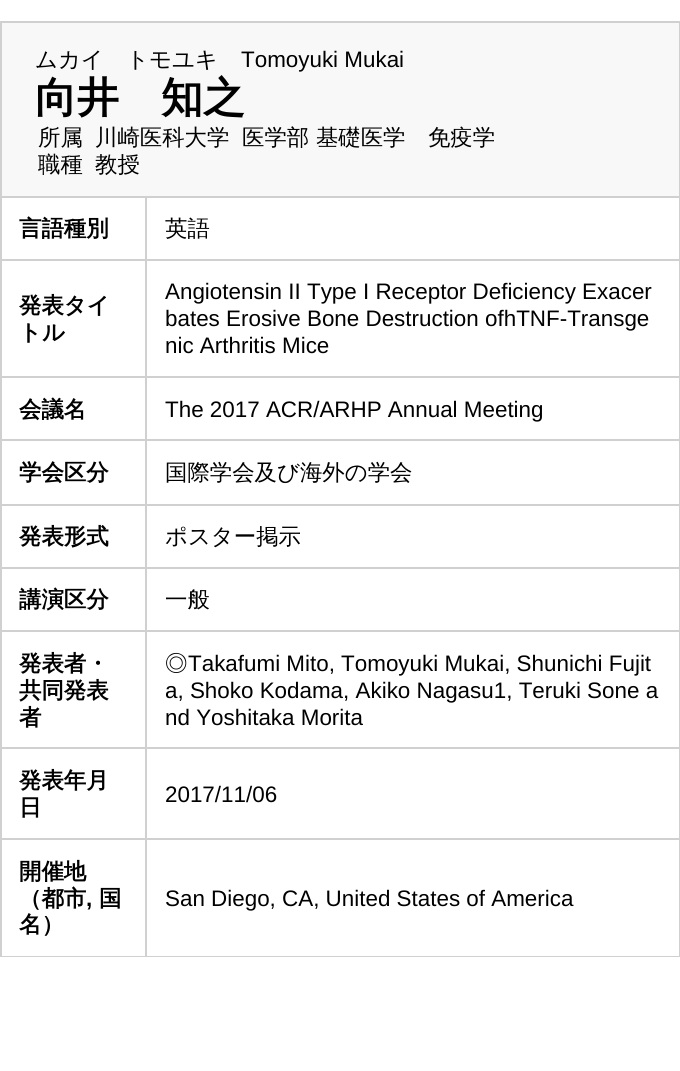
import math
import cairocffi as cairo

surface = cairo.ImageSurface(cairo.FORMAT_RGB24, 680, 1071)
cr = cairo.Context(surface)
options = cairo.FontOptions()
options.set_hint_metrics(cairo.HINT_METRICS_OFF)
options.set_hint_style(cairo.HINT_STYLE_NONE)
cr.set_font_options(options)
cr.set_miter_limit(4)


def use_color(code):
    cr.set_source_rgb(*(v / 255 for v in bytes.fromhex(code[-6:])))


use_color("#ffffff")
cr.paint()
use_color("#d0d0d0")
cr.rectangle(0, 21, 680, 936)
cr.fill()
use_color("#f8f8f8")
cr.rectangle(2, 23, 677, 173)
cr.fill()
cr.select_font_face("WenQuanYi Zen Hei Medium")
cr.set_font_size(22.4)
use_color("#000000")
cr.move_to(35, 67)
cr.show_text("ムカイ　トモユキ")
cr.select_font_face("Liberation Sans")
cr.move_to(241, 67)
cr.show_text("Tomoyuki Mukai")
cr.select_font_face("WenQuanYi Zen Hei", cairo.FONT_SLANT_NORMAL, cairo.FONT_WEIGHT_BOLD)
cr.set_font_size(42)
cr.move_to(35, 112)
cr.show_text("向井　知之")
cr.select_font_face("WenQuanYi Zen Hei Medium")
cr.set_font_size(22.4)
cr.move_to(38, 145)
cr.show_text("所属")
cr.move_to(95, 145)
cr.show_text("川崎医科大学")
cr.move_to(242, 145)
cr.show_text("医学部 基礎医学　免疫学")
cr.move_to(38, 172)
cr.show_text("職種")
cr.move_to(95, 172)
cr.show_text("教授")
use_color("#ffffff")
cr.rectangle(2, 198, 143, 61)
cr.fill()
cr.select_font_face("WenQuanYi Zen Hei", cairo.FONT_SLANT_NORMAL, cairo.FONT_WEIGHT_BOLD)
use_color("#000000")
cr.move_to(19, 236)
cr.show_text("言語種別")
use_color("#ffffff")
cr.rectangle(147, 198, 532, 61)
cr.fill()
cr.select_font_face("WenQuanYi Zen Hei Medium")
use_color("#000000")
cr.move_to(165, 236)
cr.show_text("英語")
use_color("#ffffff")
cr.rectangle(2, 261, 143, 115)
cr.fill()
cr.select_font_face("WenQuanYi Zen Hei", cairo.FONT_SLANT_NORMAL, cairo.FONT_WEIGHT_BOLD)
use_color("#000000")
cr.move_to(19, 313)
cr.show_text("発表タイ")
cr.move_to(19, 340)
cr.show_text("トル")
use_color("#ffffff")
cr.rectangle(147, 261, 532, 115)
cr.fill()
cr.select_font_face("Liberation Sans")
use_color("#000000")
cr.move_to(165, 299)
cr.show_text("Angiotensin II Type I Receptor Deficiency Exacer")
cr.move_to(165, 326)
cr.show_text("bates Erosive Bone Destruction ofhTNF-Transge")
cr.move_to(165, 353)
cr.show_text("nic Arthritis Mice")
use_color("#ffffff")
cr.rectangle(2, 378, 143, 61)
cr.fill()
cr.select_font_face("WenQuanYi Zen Hei", cairo.FONT_SLANT_NORMAL, cairo.FONT_WEIGHT_BOLD)
use_color("#000000")
cr.move_to(19, 417)
cr.show_text("会議名")
use_color("#ffffff")
cr.rectangle(147, 378, 532, 61)
cr.fill()
cr.select_font_face("Liberation Sans")
use_color("#000000")
cr.move_to(165, 417)
cr.show_text("The 2017 ACR/ARHP Annual Meeting")
use_color("#ffffff")
cr.rectangle(2, 441, 143, 63)
cr.fill()
cr.select_font_face("WenQuanYi Zen Hei", cairo.FONT_SLANT_NORMAL, cairo.FONT_WEIGHT_BOLD)
use_color("#000000")
cr.move_to(19, 480)
cr.show_text("学会区分")
use_color("#ffffff")
cr.rectangle(147, 441, 532, 63)
cr.fill()
cr.select_font_face("WenQuanYi Zen Hei Medium")
use_color("#000000")
cr.move_to(165, 480)
cr.show_text("国際学会及び海外の学会")
use_color("#ffffff")
cr.rectangle(2, 506, 143, 61)
cr.fill()
cr.select_font_face("WenQuanYi Zen Hei", cairo.FONT_SLANT_NORMAL, cairo.FONT_WEIGHT_BOLD)
use_color("#000000")
cr.move_to(19, 544)
cr.show_text("発表形式")
use_color("#ffffff")
cr.rectangle(147, 506, 532, 61)
cr.fill()
cr.select_font_face("WenQuanYi Zen Hei Medium")
use_color("#000000")
cr.move_to(165, 544)
cr.show_text("ポスター掲示")
use_color("#ffffff")
cr.rectangle(2, 569, 143, 61)
cr.fill()
cr.select_font_face("WenQuanYi Zen Hei", cairo.FONT_SLANT_NORMAL, cairo.FONT_WEIGHT_BOLD)
use_color("#000000")
cr.move_to(19, 607)
cr.show_text("講演区分")
use_color("#ffffff")
cr.rectangle(147, 569, 532, 61)
cr.fill()
cr.select_font_face("WenQuanYi Zen Hei Medium")
use_color("#000000")
cr.move_to(165, 607)
cr.show_text("一般")
use_color("#ffffff")
cr.rectangle(2, 632, 143, 115)
cr.fill()
cr.select_font_face("WenQuanYi Zen Hei", cairo.FONT_SLANT_NORMAL, cairo.FONT_WEIGHT_BOLD)
use_color("#000000")
cr.move_to(19, 671)
cr.show_text("発表者・")
cr.move_to(19, 698)
cr.show_text("共同発表")
cr.move_to(19, 725)
cr.show_text("者")
use_color("#ffffff")
cr.rectangle(147, 632, 532, 115)
cr.fill()
cr.select_font_face("WenQuanYi Zen Hei Medium")
use_color("#000000")
cr.move_to(165, 671)
cr.show_text("◎")
cr.select_font_face("Liberation Sans")
cr.move_to(188, 671)
cr.show_text("Takafumi Mito, Tomoyuki Mukai, Shunichi Fujit")
cr.move_to(165, 698)
cr.show_text("a, Shoko Kodama, Akiko Nagasu1, Teruki Sone a")
cr.move_to(165, 725)
cr.show_text("nd Yoshitaka Morita")
use_color("#ffffff")
cr.rectangle(2, 749, 143, 89)
cr.fill()
cr.select_font_face("WenQuanYi Zen Hei", cairo.FONT_SLANT_NORMAL, cairo.FONT_WEIGHT_BOLD)
use_color("#000000")
cr.move_to(19, 788)
cr.show_text("発表年月")
cr.move_to(19, 815)
cr.show_text("日")
use_color("#ffffff")
cr.rectangle(147, 749, 532, 89)
cr.fill()
cr.select_font_face("Liberation Sans")
use_color("#000000")
cr.move_to(165, 802)
cr.show_text("2017/11/06")
use_color("#ffffff")
cr.rectangle(2, 840, 143, 116)
cr.fill()
cr.select_font_face("WenQuanYi Zen Hei", cairo.FONT_SLANT_NORMAL, cairo.FONT_WEIGHT_BOLD)
use_color("#000000")
cr.move_to(19, 879)
cr.show_text("開催地")
cr.move_to(19, 906)
cr.show_text("（都市")
cr.select_font_face("Liberation Sans", cairo.FONT_SLANT_NORMAL, cairo.FONT_WEIGHT_BOLD)
cr.move_to(86, 906)
cr.show_text(",")
cr.select_font_face("WenQuanYi Zen Hei", cairo.FONT_SLANT_NORMAL, cairo.FONT_WEIGHT_BOLD)
cr.move_to(99, 906)
cr.show_text("国")
cr.move_to(19, 932)
cr.show_text("名）")
use_color("#ffffff")
cr.rectangle(147, 840, 532, 116)
cr.fill()
cr.select_font_face("Liberation Sans")
use_color("#000000")
cr.move_to(165, 906)
cr.show_text("San Diego, CA, United States of America")
surface.write_to_png("result.png")
